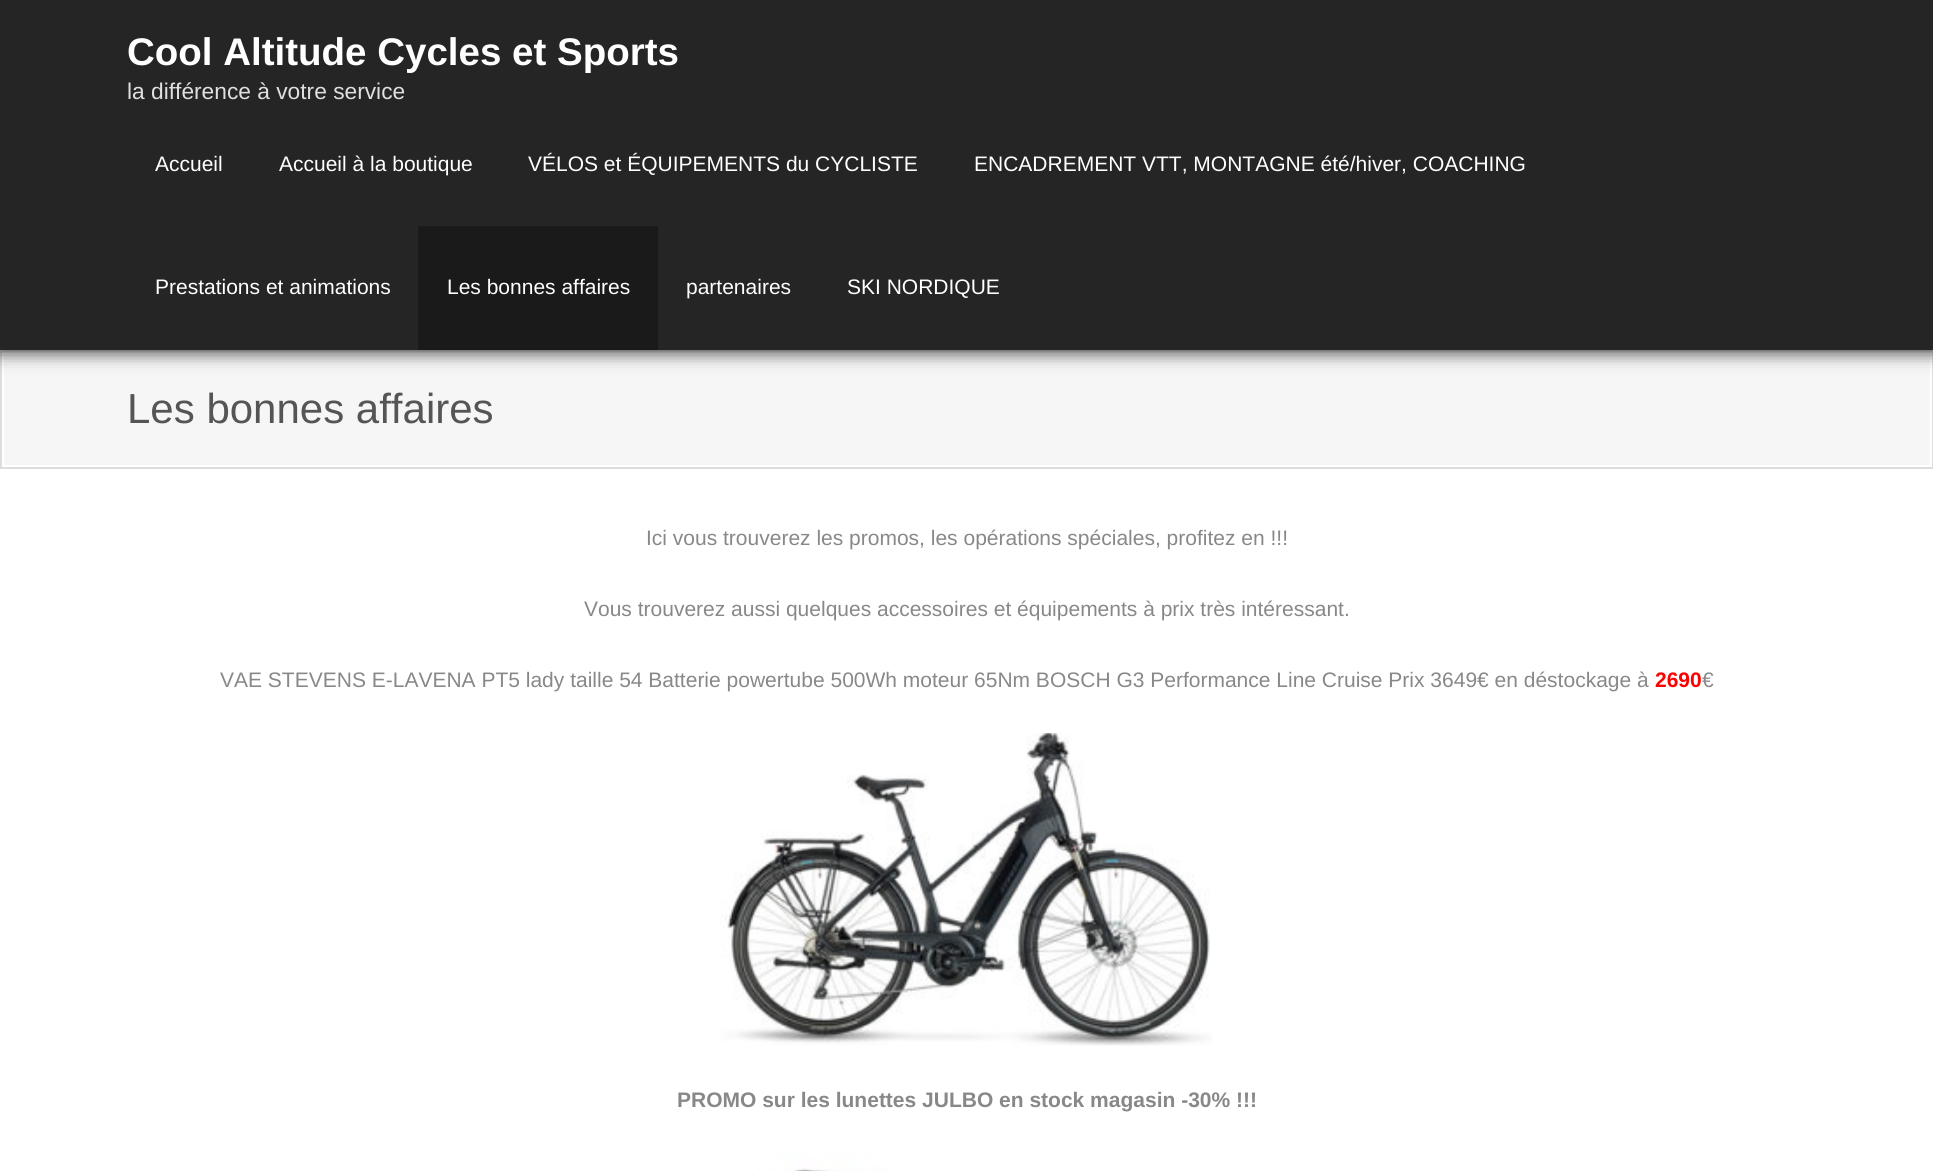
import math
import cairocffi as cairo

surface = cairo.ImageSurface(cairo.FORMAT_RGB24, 1933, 1171)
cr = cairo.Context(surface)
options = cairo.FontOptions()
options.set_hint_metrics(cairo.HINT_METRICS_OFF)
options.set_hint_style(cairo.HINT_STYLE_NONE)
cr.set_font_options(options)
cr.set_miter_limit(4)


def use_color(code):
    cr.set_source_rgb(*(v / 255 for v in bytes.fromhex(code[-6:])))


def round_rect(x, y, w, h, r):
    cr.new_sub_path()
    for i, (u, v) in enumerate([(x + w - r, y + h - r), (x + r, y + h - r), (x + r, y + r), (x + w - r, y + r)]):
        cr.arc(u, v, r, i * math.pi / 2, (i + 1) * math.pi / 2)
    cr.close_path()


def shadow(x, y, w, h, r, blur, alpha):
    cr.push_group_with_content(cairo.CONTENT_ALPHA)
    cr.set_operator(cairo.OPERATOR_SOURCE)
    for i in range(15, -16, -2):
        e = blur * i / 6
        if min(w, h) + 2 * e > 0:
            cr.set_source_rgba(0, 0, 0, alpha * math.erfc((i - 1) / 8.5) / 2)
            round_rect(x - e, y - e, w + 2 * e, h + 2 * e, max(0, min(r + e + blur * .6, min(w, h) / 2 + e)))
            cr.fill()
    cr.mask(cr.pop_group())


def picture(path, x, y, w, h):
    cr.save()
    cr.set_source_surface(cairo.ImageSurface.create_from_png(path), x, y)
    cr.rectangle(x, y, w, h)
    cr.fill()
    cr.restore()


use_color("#ffffff")
cr.paint()
use_color("#f6f6f6")
cr.rectangle(4, 354, 1926, 111)
cr.fill()
cr.rectangle(1, 351, 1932, 117)
use_color("#dddddd")
cr.stroke()
use_color("#333333")
shadow(-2, -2, 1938, 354, 0, 9, 1)
use_color("#252525")
cr.rectangle(0, 0, 1933, 350)
cr.fill()
cr.select_font_face("Liberation Sans", cairo.FONT_SLANT_NORMAL, cairo.FONT_WEIGHT_BOLD)
cr.set_font_size(38.5)
use_color("#ffffff")
cr.move_to(127, 65)
cr.show_text("Cool Altitude Cycles et Sports")
cr.select_font_face("Liberation Sans")
cr.set_font_size(22.75)
use_color("#e0e0e0")
cr.move_to(127, 99)
cr.show_text("la différence à votre service")
cr.set_font_size(21)
use_color("#ffffff")
cr.move_to(155, 171)
cr.show_text("Accueil")
cr.move_to(279, 171)
cr.show_text("Accueil à la boutique")
cr.move_to(528, 171)
cr.show_text("VÉLOS et ÉQUIPEMENTS du CYCLISTE")
cr.move_to(974, 171)
cr.show_text("ENCADREMENT VTT, MONTAGNE été/hiver, COACHING")
cr.move_to(155, 294)
cr.show_text("Prestations et animations")
use_color("#1a1a1a")
cr.rectangle(418, 226, 240, 124)
cr.fill()
use_color("#ffffff")
cr.move_to(447, 294)
cr.show_text("Les bonnes affaires")
cr.move_to(686, 294)
cr.show_text("partenaires")
cr.move_to(847, 294)
cr.show_text("SKI NORDIQUE")
cr.set_font_size(42)
use_color("#555555")
cr.move_to(127, 423)
cr.show_text("Les bonnes affaires")
cr.set_font_size(21)
use_color("#888888")
cr.move_to(646, 545)
cr.show_text("Ici vous trouverez les promos, les opérations spéciales, profitez en !!!")
cr.move_to(584, 616)
cr.show_text("Vous trouverez aussi quelques accessoires et équipements à prix très intéressant.")
cr.move_to(220, 687)
cr.show_text("VAE STEVENS E-LAVENA PT5 lady taille 54 Batterie powertube 500Wh moteur 65Nm BOSCH G3 Performance Line Cruise Prix 3649€ en déstockage à")
cr.select_font_face("Liberation Sans", cairo.FONT_SLANT_NORMAL, cairo.FONT_WEIGHT_BOLD)
use_color("#ff0000")
cr.move_to(1655, 687)
cr.show_text("2690")
cr.select_font_face("Liberation Sans")
use_color("#888888")
cr.move_to(1702, 687)
cr.show_text("€")
picture("img1.png", 720, 733, 492, 313)
cr.select_font_face("Liberation Sans", cairo.FONT_SLANT_NORMAL, cairo.FONT_WEIGHT_BOLD)
cr.move_to(677, 1107)
cr.show_text("PROMO sur les lunettes JULBO en stock magasin -30% !!!")
picture("img2.png", 758, 1153, 129, 18)
surface.write_to_png("result.png")
